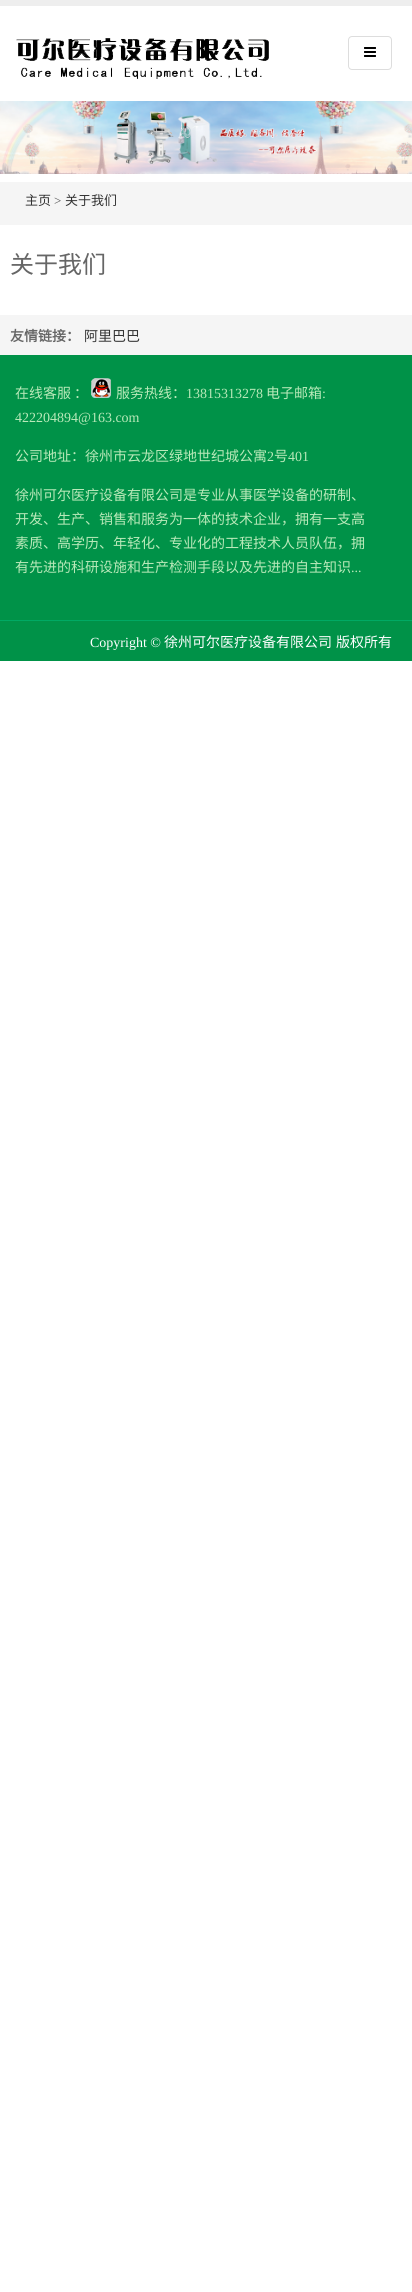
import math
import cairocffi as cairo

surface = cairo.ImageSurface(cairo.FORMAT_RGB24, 412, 2292)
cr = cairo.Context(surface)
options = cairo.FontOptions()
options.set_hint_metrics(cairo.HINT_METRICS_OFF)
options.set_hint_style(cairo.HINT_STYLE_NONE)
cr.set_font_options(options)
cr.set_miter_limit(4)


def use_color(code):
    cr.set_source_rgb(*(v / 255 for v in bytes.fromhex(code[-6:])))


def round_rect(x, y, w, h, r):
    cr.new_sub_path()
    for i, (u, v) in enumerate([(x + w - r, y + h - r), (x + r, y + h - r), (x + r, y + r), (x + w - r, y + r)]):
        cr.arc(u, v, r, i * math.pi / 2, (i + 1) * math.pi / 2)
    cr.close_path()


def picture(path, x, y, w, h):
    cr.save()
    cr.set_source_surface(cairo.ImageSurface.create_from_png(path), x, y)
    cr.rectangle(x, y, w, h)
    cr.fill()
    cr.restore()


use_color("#ffffff")
cr.paint()
use_color("#eeeeee")
cr.rectangle(0, 0, 412, 6)
cr.fill()
picture("img1.png", 16, 38, 253, 41)
round_rect(348.5, 36.5, 43, 33, 3.5)
use_color("#dddddd")
cr.set_line_width(1)
cr.stroke()
picture("img2.png", 364, 47, 12, 10)
picture("img3.png", 0, 101, 412, 73)
use_color("#f5f5f5")
cr.rectangle(0, 182, 412, 43)
cr.fill()
cr.select_font_face("Noto Sans CJK SC")
cr.set_font_size(13)
use_color("#333333")
cr.move_to(25, 205)
cr.show_text("主页")
cr.select_font_face("Liberation Serif")
use_color("#555555")
cr.move_to(54, 205)
cr.show_text(">")
cr.select_font_face("Noto Sans CJK SC")
use_color("#333333")
cr.move_to(65, 205)
cr.show_text("关于我们")
cr.set_font_size(24)
use_color("#666666")
cr.move_to(10, 273)
cr.show_text("关于我们")
use_color("#f5f5f5")
cr.rectangle(0, 315, 412, 40)
cr.fill()
cr.select_font_face("Noto Sans CJK SC", cairo.FONT_SLANT_NORMAL, cairo.FONT_WEIGHT_BOLD)
cr.set_font_size(14)
use_color("#666666")
cr.move_to(10, 341)
cr.show_text("友情链接：")
cr.select_font_face("Noto Sans CJK SC")
use_color("#333333")
cr.move_to(84, 341)
cr.show_text("阿里巴巴")
use_color("#009248")
cr.rectangle(0, 355, 412, 265)
cr.fill()
use_color("#b9e9b9")
cr.move_to(15, 398)
cr.show_text("在线客服")
cr.move_to(74, 398)
cr.show_text("：")
picture("img4.png", 91, 378, 20, 20)
cr.move_to(116, 398)
cr.show_text("服务热线：")
cr.select_font_face("Liberation Serif")
cr.move_to(186, 398)
cr.show_text("13815313278")
cr.select_font_face("Noto Sans CJK SC")
cr.move_to(266, 398)
cr.show_text("电子邮箱")
cr.select_font_face("Liberation Serif")
cr.move_to(322, 398)
cr.show_text(":")
cr.move_to(15, 422)
cr.show_text("422204894@163.com")
cr.select_font_face("Noto Sans CJK SC")
cr.move_to(15, 461)
cr.show_text("公司地址：徐州市云龙区绿地世纪城公寓")
cr.select_font_face("Liberation Serif")
cr.move_to(267, 461)
cr.show_text("2")
cr.select_font_face("Noto Sans CJK SC")
cr.move_to(274, 461)
cr.show_text("号")
cr.select_font_face("Liberation Serif")
cr.move_to(288, 461)
cr.show_text("401")
cr.select_font_face("Noto Sans CJK SC")
cr.move_to(15, 500)
cr.show_text("徐州可尔医疗设备有限公司是专业从事医学设备的研制、")
cr.move_to(15, 524)
cr.show_text("开发、生产、销售和服务为一体的技术企业，拥有一支高")
cr.move_to(15, 548)
cr.show_text("素质、高学历、年轻化、专业化的工程技术人员队伍，拥")
cr.move_to(15, 572)
cr.show_text("有先进的科研设施和生产检测手段以及先进的自主知识")
cr.select_font_face("Liberation Serif")
cr.move_to(351, 572)
cr.show_text("...")
use_color("#009248")
cr.rectangle(0, 621, 412, 40)
cr.fill()
use_color("#00aa64")
cr.rectangle(0, 620, 412, 1)
cr.fill()
use_color("#ffffff")
cr.move_to(90, 647)
cr.show_text("Copyright ©")
cr.select_font_face("Noto Sans CJK SC")
cr.move_to(164, 647)
cr.show_text("徐州可尔医疗设备有限公司")
cr.move_to(336, 647)
cr.show_text("版权所有")
surface.write_to_png("result.png")
